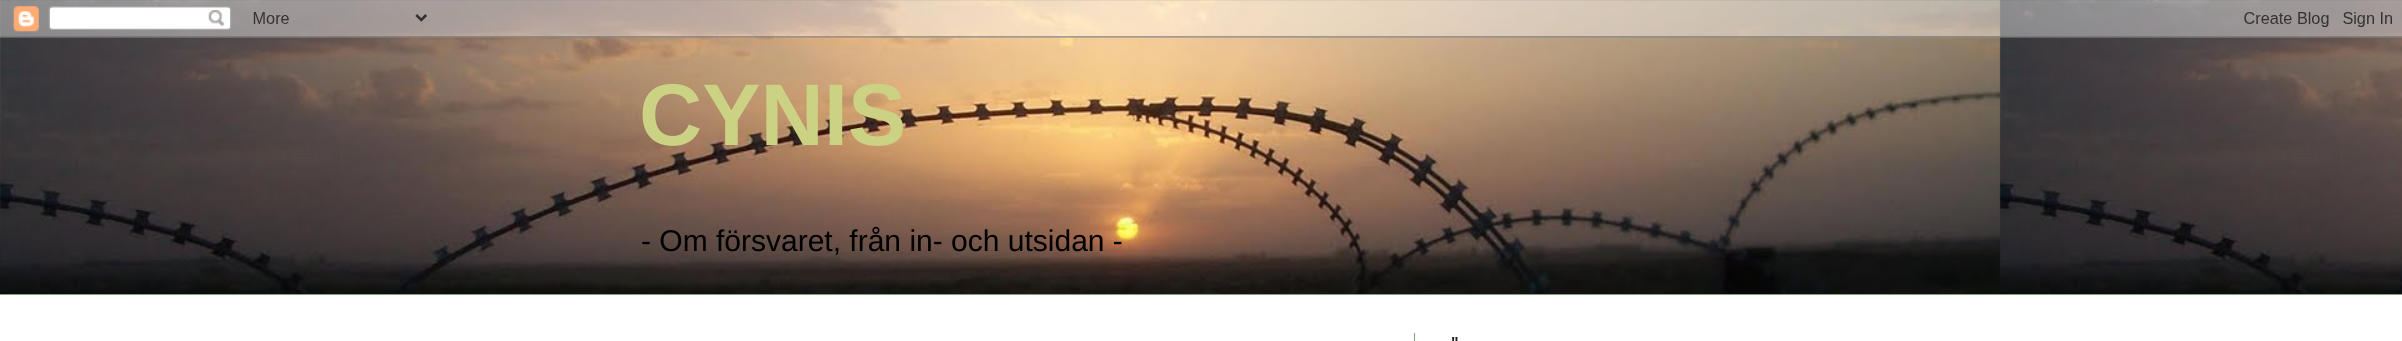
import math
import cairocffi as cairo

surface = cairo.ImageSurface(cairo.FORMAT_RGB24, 2402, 341)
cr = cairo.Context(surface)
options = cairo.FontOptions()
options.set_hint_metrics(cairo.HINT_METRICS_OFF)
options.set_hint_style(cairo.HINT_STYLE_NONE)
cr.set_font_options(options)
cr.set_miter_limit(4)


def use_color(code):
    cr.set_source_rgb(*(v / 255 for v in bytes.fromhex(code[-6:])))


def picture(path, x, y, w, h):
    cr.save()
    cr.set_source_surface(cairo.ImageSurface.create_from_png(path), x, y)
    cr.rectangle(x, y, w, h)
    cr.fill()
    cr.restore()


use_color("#ffffff")
cr.paint()
picture("img1.png", 0, 0, 2402, 294)
picture("img2.png", 0, 0, 2402, 38)
cr.select_font_face("Liberation Sans", cairo.FONT_SLANT_NORMAL, cairo.FONT_WEIGHT_BOLD)
cr.set_font_size(87.5)
use_color("#ccd283")
cr.move_to(639, 145)
cr.show_text("CYNIS")
cr.select_font_face("Liberation Sans")
cr.set_font_size(30)
use_color("#000000")
cr.move_to(641, 251)
cr.show_text("- Om försvaret, från in- och utsidan -")
use_color("#80a17c")
cr.rectangle(0, 294, 2402, 1)
cr.fill()
cr.rectangle(1414, 333, 1, 8)
cr.fill()
cr.select_font_face("Liberation Sans", cairo.FONT_SLANT_NORMAL, cairo.FONT_WEIGHT_BOLD)
cr.set_font_size(16)
use_color("#222222")
cr.move_to(1451, 348)
cr.show_text("\"")
surface.write_to_png("result.png")
